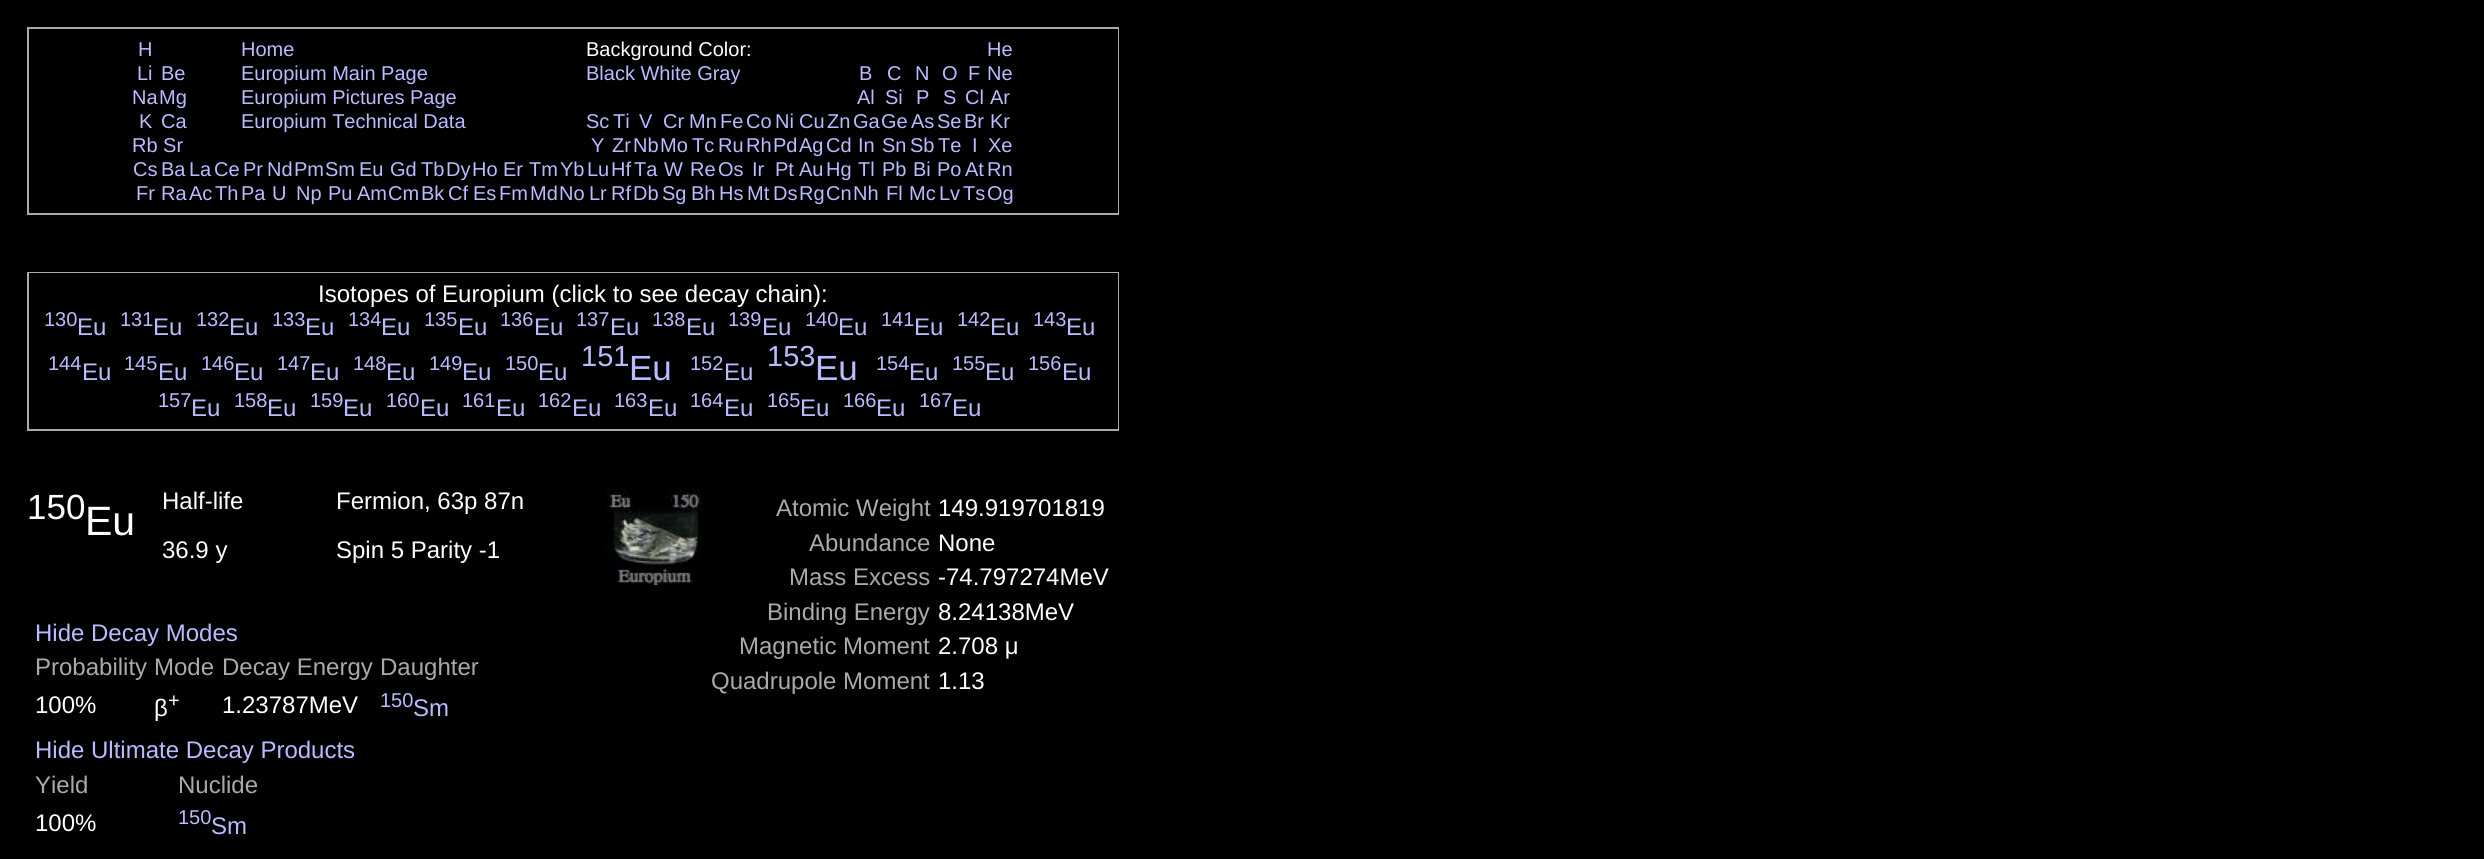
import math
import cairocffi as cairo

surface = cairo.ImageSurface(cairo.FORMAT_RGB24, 2484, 859)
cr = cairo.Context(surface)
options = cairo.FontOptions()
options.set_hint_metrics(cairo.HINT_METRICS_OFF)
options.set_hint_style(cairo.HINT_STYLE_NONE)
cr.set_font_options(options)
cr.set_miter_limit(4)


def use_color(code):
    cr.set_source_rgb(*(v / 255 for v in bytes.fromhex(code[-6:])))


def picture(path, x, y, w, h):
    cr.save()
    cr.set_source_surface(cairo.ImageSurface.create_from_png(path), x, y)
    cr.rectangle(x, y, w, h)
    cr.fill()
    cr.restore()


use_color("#000000")
cr.paint()
use_color("#aaaaaa")
cr.rectangle(27, 27, 1092, 188)
cr.fill()
use_color("#000000")
cr.rectangle(29, 29, 1089, 184)
cr.fill()
cr.select_font_face("Liberation Sans")
cr.set_font_size(20)
use_color("#bbbbff")
cr.move_to(138, 56)
cr.show_text("H")
cr.move_to(241, 56)
cr.show_text("Home")
use_color("#ffffff")
cr.move_to(586, 56)
cr.show_text("Background Color:")
use_color("#bbbbff")
cr.move_to(987, 56)
cr.show_text("He")
cr.move_to(137, 80)
cr.show_text("Li")
cr.move_to(161, 80)
cr.show_text("Be")
cr.move_to(241, 80)
cr.show_text("Europium Main Page")
cr.move_to(586, 80)
cr.show_text("Black White Gray")
cr.move_to(859, 80)
cr.show_text("B")
cr.move_to(887, 80)
cr.show_text("C")
cr.move_to(915, 80)
cr.show_text("N")
cr.move_to(942, 80)
cr.show_text("O")
cr.move_to(968, 80)
cr.show_text("F")
cr.move_to(987, 80)
cr.show_text("Ne")
cr.move_to(132, 104)
cr.show_text("Na")
cr.move_to(159, 104)
cr.show_text("Mg")
cr.move_to(241, 104)
cr.show_text("Europium Pictures Page")
cr.move_to(857, 104)
cr.show_text("Al")
cr.move_to(885, 104)
cr.show_text("Si")
cr.move_to(916, 104)
cr.show_text("P")
cr.move_to(943, 104)
cr.show_text("S")
cr.move_to(965, 104)
cr.show_text("Cl")
cr.move_to(990, 104)
cr.show_text("Ar")
cr.move_to(139, 128)
cr.show_text("K")
cr.move_to(161, 128)
cr.show_text("Ca")
cr.move_to(241, 128)
cr.show_text("Europium Technical Data")
cr.move_to(586, 128)
cr.show_text("Sc")
cr.move_to(613, 128)
cr.show_text("Ti")
cr.move_to(639, 128)
cr.show_text("V")
cr.move_to(663, 128)
cr.show_text("Cr")
cr.move_to(689, 128)
cr.show_text("Mn")
cr.move_to(720, 128)
cr.show_text("Fe")
cr.move_to(746, 128)
cr.show_text("Co")
cr.move_to(775, 128)
cr.show_text("Ni")
cr.move_to(799, 128)
cr.show_text("Cu")
cr.move_to(827, 128)
cr.show_text("Zn")
cr.move_to(853, 128)
cr.show_text("Ga")
cr.move_to(881, 128)
cr.show_text("Ge")
cr.move_to(911, 128)
cr.show_text("As")
cr.move_to(937, 128)
cr.show_text("Se")
cr.move_to(964, 128)
cr.show_text("Br")
cr.move_to(990, 128)
cr.show_text("Kr")
cr.move_to(132, 152)
cr.show_text("Rb Sr")
cr.move_to(591, 152)
cr.show_text("Y")
cr.move_to(612, 152)
cr.show_text("Zr")
cr.move_to(633, 152)
cr.show_text("Nb")
cr.move_to(660, 152)
cr.show_text("Mo")
cr.move_to(692, 152)
cr.show_text("Tc")
cr.move_to(718, 152)
cr.show_text("Ru")
cr.move_to(746, 152)
cr.show_text("Rh")
cr.move_to(773, 152)
cr.show_text("Pd")
cr.move_to(799, 152)
cr.show_text("Ag")
cr.move_to(826, 152)
cr.show_text("Cd")
cr.move_to(858, 152)
cr.show_text("In")
cr.move_to(882, 152)
cr.show_text("Sn")
cr.move_to(910, 152)
cr.show_text("Sb")
cr.move_to(938, 152)
cr.show_text("Te")
cr.move_to(972, 152)
cr.show_text("I")
cr.move_to(988, 152)
cr.show_text("Xe")
cr.move_to(133, 176)
cr.show_text("Cs")
cr.move_to(161, 176)
cr.show_text("Ba")
cr.move_to(189, 176)
cr.show_text("La")
cr.move_to(214, 176)
cr.show_text("Ce")
cr.move_to(243, 176)
cr.show_text("Pr")
cr.move_to(267, 176)
cr.show_text("Nd")
cr.move_to(294, 176)
cr.show_text("Pm")
cr.move_to(325, 176)
cr.show_text("Sm")
cr.move_to(359, 176)
cr.show_text("Eu")
cr.move_to(390, 176)
cr.show_text("Gd")
cr.move_to(421, 176)
cr.show_text("Tb")
cr.move_to(446, 176)
cr.show_text("Dy")
cr.move_to(472, 176)
cr.show_text("Ho")
cr.move_to(503, 176)
cr.show_text("Er")
cr.move_to(529, 176)
cr.show_text("Tm")
cr.move_to(560, 176)
cr.show_text("Yb")
cr.move_to(587, 176)
cr.show_text("Lu")
cr.move_to(611, 176)
cr.show_text("Hf")
cr.move_to(634, 176)
cr.show_text("Ta")
cr.move_to(664, 176)
cr.show_text("W")
cr.move_to(690, 176)
cr.show_text("Re")
cr.move_to(718, 176)
cr.show_text("Os")
cr.move_to(752, 176)
cr.show_text("Ir")
cr.move_to(775, 176)
cr.show_text("Pt")
cr.move_to(799, 176)
cr.show_text("Au")
cr.move_to(826, 176)
cr.show_text("Hg")
cr.move_to(858, 176)
cr.show_text("Tl")
cr.move_to(882, 176)
cr.show_text("Pb")
cr.move_to(913, 176)
cr.show_text("Bi")
cr.move_to(937, 176)
cr.show_text("Po")
cr.move_to(965, 176)
cr.show_text("At")
cr.move_to(987, 176)
cr.show_text("Rn")
cr.move_to(136, 200)
cr.show_text("Fr")
cr.move_to(161, 200)
cr.show_text("Ra")
cr.move_to(189, 200)
cr.show_text("Ac")
cr.move_to(215, 200)
cr.show_text("Th")
cr.move_to(241, 200)
cr.show_text("Pa")
cr.move_to(272, 200)
cr.show_text("U")
cr.move_to(296, 200)
cr.show_text("Np")
cr.move_to(328, 200)
cr.show_text("Pu")
cr.move_to(357, 200)
cr.show_text("Am")
cr.move_to(388, 200)
cr.show_text("Cm")
cr.move_to(421, 200)
cr.show_text("Bk")
cr.move_to(448, 200)
cr.show_text("Cf")
cr.move_to(473, 200)
cr.show_text("Es")
cr.move_to(499, 200)
cr.show_text("Fm")
cr.move_to(530, 200)
cr.show_text("Md")
cr.move_to(559, 200)
cr.show_text("No")
cr.move_to(589, 200)
cr.show_text("Lr")
cr.move_to(611, 200)
cr.show_text("Rf")
cr.move_to(633, 200)
cr.show_text("Db")
cr.move_to(662, 200)
cr.show_text("Sg")
cr.move_to(691, 200)
cr.show_text("Bh")
cr.move_to(719, 200)
cr.show_text("Hs")
cr.move_to(747, 200)
cr.show_text("Mt")
cr.move_to(773, 200)
cr.show_text("Ds")
cr.move_to(799, 200)
cr.show_text("Rg")
cr.move_to(826, 200)
cr.show_text("Cn")
cr.move_to(853, 200)
cr.show_text("Nh")
cr.move_to(886, 200)
cr.show_text("Fl")
cr.move_to(909, 200)
cr.show_text("Mc")
cr.move_to(939, 200)
cr.show_text("Lv")
cr.move_to(963, 200)
cr.show_text("Ts")
cr.move_to(987, 200)
cr.show_text("Og")
use_color("#aaaaaa")
cr.rectangle(27, 272, 1092, 159)
cr.fill()
use_color("#000000")
cr.rectangle(29, 273, 1089, 156)
cr.fill()
cr.set_font_size(24)
use_color("#ffffff")
cr.move_to(318, 302)
cr.show_text("Isotopes of Europium (click to see decay chain):")
cr.set_font_size(20)
use_color("#bbbbff")
cr.move_to(44, 326)
cr.show_text("130")
cr.set_font_size(24)
cr.move_to(77, 335)
cr.show_text("Eu")
cr.set_font_size(20)
cr.move_to(120, 326)
cr.show_text("131")
cr.set_font_size(24)
cr.move_to(153, 335)
cr.show_text("Eu")
cr.set_font_size(20)
cr.move_to(196, 326)
cr.show_text("132")
cr.set_font_size(24)
cr.move_to(229, 335)
cr.show_text("Eu")
cr.set_font_size(20)
cr.move_to(272, 326)
cr.show_text("133")
cr.set_font_size(24)
cr.move_to(305, 335)
cr.show_text("Eu")
cr.set_font_size(20)
cr.move_to(348, 326)
cr.show_text("134")
cr.set_font_size(24)
cr.move_to(381, 335)
cr.show_text("Eu")
cr.set_font_size(20)
cr.move_to(424, 326)
cr.show_text("135")
cr.set_font_size(24)
cr.move_to(458, 335)
cr.show_text("Eu")
cr.set_font_size(20)
cr.move_to(500, 326)
cr.show_text("136")
cr.set_font_size(24)
cr.move_to(534, 335)
cr.show_text("Eu")
cr.set_font_size(20)
cr.move_to(576, 326)
cr.show_text("137")
cr.set_font_size(24)
cr.move_to(610, 335)
cr.show_text("Eu")
cr.set_font_size(20)
cr.move_to(652, 326)
cr.show_text("138")
cr.set_font_size(24)
cr.move_to(686, 335)
cr.show_text("Eu")
cr.set_font_size(20)
cr.move_to(728, 326)
cr.show_text("139")
cr.set_font_size(24)
cr.move_to(762, 335)
cr.show_text("Eu")
cr.set_font_size(20)
cr.move_to(805, 326)
cr.show_text("140")
cr.set_font_size(24)
cr.move_to(838, 335)
cr.show_text("Eu")
cr.set_font_size(20)
cr.move_to(881, 326)
cr.show_text("141")
cr.set_font_size(24)
cr.move_to(914, 335)
cr.show_text("Eu")
cr.set_font_size(20)
cr.move_to(957, 326)
cr.show_text("142")
cr.set_font_size(24)
cr.move_to(990, 335)
cr.show_text("Eu")
cr.set_font_size(20)
cr.move_to(1033, 326)
cr.show_text("143")
cr.set_font_size(24)
cr.move_to(1066, 335)
cr.show_text("Eu")
cr.set_font_size(20)
cr.move_to(48, 370)
cr.show_text("144")
cr.set_font_size(24)
cr.move_to(82, 380)
cr.show_text("Eu")
cr.set_font_size(20)
cr.move_to(124, 370)
cr.show_text("145")
cr.set_font_size(24)
cr.move_to(158, 380)
cr.show_text("Eu")
cr.set_font_size(20)
cr.move_to(201, 370)
cr.show_text("146")
cr.set_font_size(24)
cr.move_to(234, 380)
cr.show_text("Eu")
cr.set_font_size(20)
cr.move_to(277, 370)
cr.show_text("147")
cr.set_font_size(24)
cr.move_to(310, 380)
cr.show_text("Eu")
cr.set_font_size(20)
cr.move_to(353, 370)
cr.show_text("148")
cr.set_font_size(24)
cr.move_to(386, 380)
cr.show_text("Eu")
cr.set_font_size(20)
cr.move_to(429, 370)
cr.show_text("149")
cr.set_font_size(24)
cr.move_to(462, 380)
cr.show_text("Eu")
cr.set_font_size(20)
cr.move_to(505, 370)
cr.show_text("150")
cr.set_font_size(24)
cr.move_to(538, 380)
cr.show_text("Eu")
cr.set_font_size(29)
cr.move_to(581, 366)
cr.show_text("151")
cr.set_font_size(35)
cr.move_to(629, 380)
cr.show_text("Eu")
cr.set_font_size(20)
cr.move_to(690, 370)
cr.show_text("152")
cr.set_font_size(24)
cr.move_to(724, 380)
cr.show_text("Eu")
cr.set_font_size(29)
cr.move_to(767, 366)
cr.show_text("153")
cr.set_font_size(35)
cr.move_to(815, 380)
cr.show_text("Eu")
cr.set_font_size(20)
cr.move_to(876, 370)
cr.show_text("154")
cr.set_font_size(24)
cr.move_to(909, 380)
cr.show_text("Eu")
cr.set_font_size(20)
cr.move_to(952, 370)
cr.show_text("155")
cr.set_font_size(24)
cr.move_to(985, 380)
cr.show_text("Eu")
cr.set_font_size(20)
cr.move_to(1028, 370)
cr.show_text("156")
cr.set_font_size(24)
cr.move_to(1062, 380)
cr.show_text("Eu")
cr.set_font_size(20)
cr.move_to(158, 407)
cr.show_text("157")
cr.set_font_size(24)
cr.move_to(191, 416)
cr.show_text("Eu")
cr.set_font_size(20)
cr.move_to(234, 407)
cr.show_text("158")
cr.set_font_size(24)
cr.move_to(267, 416)
cr.show_text("Eu")
cr.set_font_size(20)
cr.move_to(310, 407)
cr.show_text("159")
cr.set_font_size(24)
cr.move_to(343, 416)
cr.show_text("Eu")
cr.set_font_size(20)
cr.move_to(386, 407)
cr.show_text("160")
cr.set_font_size(24)
cr.move_to(420, 416)
cr.show_text("Eu")
cr.set_font_size(20)
cr.move_to(462, 407)
cr.show_text("161")
cr.set_font_size(24)
cr.move_to(496, 416)
cr.show_text("Eu")
cr.set_font_size(20)
cr.move_to(538, 407)
cr.show_text("162")
cr.set_font_size(24)
cr.move_to(572, 416)
cr.show_text("Eu")
cr.set_font_size(20)
cr.move_to(614, 407)
cr.show_text("163")
cr.set_font_size(24)
cr.move_to(648, 416)
cr.show_text("Eu")
cr.set_font_size(20)
cr.move_to(690, 407)
cr.show_text("164")
cr.set_font_size(24)
cr.move_to(724, 416)
cr.show_text("Eu")
cr.set_font_size(20)
cr.move_to(767, 407)
cr.show_text("165")
cr.set_font_size(24)
cr.move_to(800, 416)
cr.show_text("Eu")
cr.set_font_size(20)
cr.move_to(843, 407)
cr.show_text("166")
cr.set_font_size(24)
cr.move_to(876, 416)
cr.show_text("Eu")
cr.set_font_size(20)
cr.move_to(919, 407)
cr.show_text("167")
cr.set_font_size(24)
cr.move_to(952, 416)
cr.show_text("Eu")
cr.set_font_size(35)
use_color("#ffffff")
cr.move_to(27, 519)
cr.show_text("150")
cr.set_font_size(41)
cr.move_to(85, 535)
cr.show_text("Eu")
cr.set_font_size(24)
cr.move_to(162, 509)
cr.show_text("Half-life")
cr.move_to(336, 509)
cr.show_text("Fermion, 63p 87n")
picture("img1.png", 606, 487, 96, 98)
cr.move_to(162, 558)
cr.show_text("36.9 y")
cr.move_to(336, 558)
cr.show_text("Spin 5 Parity -1")
use_color("#bbbbff")
cr.move_to(35, 641)
cr.show_text("Hide Decay Modes")
use_color("#aaaaaa")
cr.move_to(35, 675)
cr.show_text("Probability")
cr.move_to(154, 675)
cr.show_text("Mode")
cr.move_to(222, 675)
cr.show_text("Decay Energy")
cr.move_to(380, 675)
cr.show_text("Daughter")
use_color("#ffffff")
cr.move_to(35, 713)
cr.show_text("100%")
cr.move_to(154, 716)
cr.show_text("β")
cr.set_font_size(20)
cr.move_to(168, 707)
cr.show_text("+")
cr.set_font_size(24)
cr.move_to(222, 713)
cr.show_text("1.23787MeV")
cr.set_font_size(20)
use_color("#bbbbff")
cr.move_to(380, 707)
cr.show_text("150")
cr.set_font_size(24)
cr.move_to(413, 716)
cr.show_text("Sm")
cr.move_to(35, 758)
cr.show_text("Hide Ultimate Decay Products")
use_color("#aaaaaa")
cr.move_to(35, 793)
cr.show_text("Yield")
cr.move_to(178, 793)
cr.show_text("Nuclide")
use_color("#ffffff")
cr.move_to(35, 831)
cr.show_text("100%")
cr.set_font_size(20)
use_color("#bbbbff")
cr.move_to(178, 824)
cr.show_text("150")
cr.set_font_size(24)
cr.move_to(211, 834)
cr.show_text("Sm")
use_color("#aaaaaa")
cr.move_to(776, 516)
cr.show_text("Atomic Weight")
use_color("#ffffff")
cr.move_to(938, 516)
cr.show_text("149.919701819")
use_color("#aaaaaa")
cr.move_to(809, 551)
cr.show_text("Abundance")
use_color("#ffffff")
cr.move_to(938, 551)
cr.show_text("None")
use_color("#aaaaaa")
cr.move_to(789, 585)
cr.show_text("Mass Excess")
use_color("#ffffff")
cr.move_to(938, 585)
cr.show_text("-74.797274MeV")
use_color("#aaaaaa")
cr.move_to(767, 620)
cr.show_text("Binding Energy")
use_color("#ffffff")
cr.move_to(938, 620)
cr.show_text("8.24138MeV")
use_color("#aaaaaa")
cr.move_to(739, 654)
cr.show_text("Magnetic Moment")
use_color("#ffffff")
cr.move_to(938, 654)
cr.show_text("2.708 μ")
use_color("#aaaaaa")
cr.move_to(711, 689)
cr.show_text("Quadrupole Moment")
use_color("#ffffff")
cr.move_to(938, 689)
cr.show_text("1.13")
surface.write_to_png("result.png")
